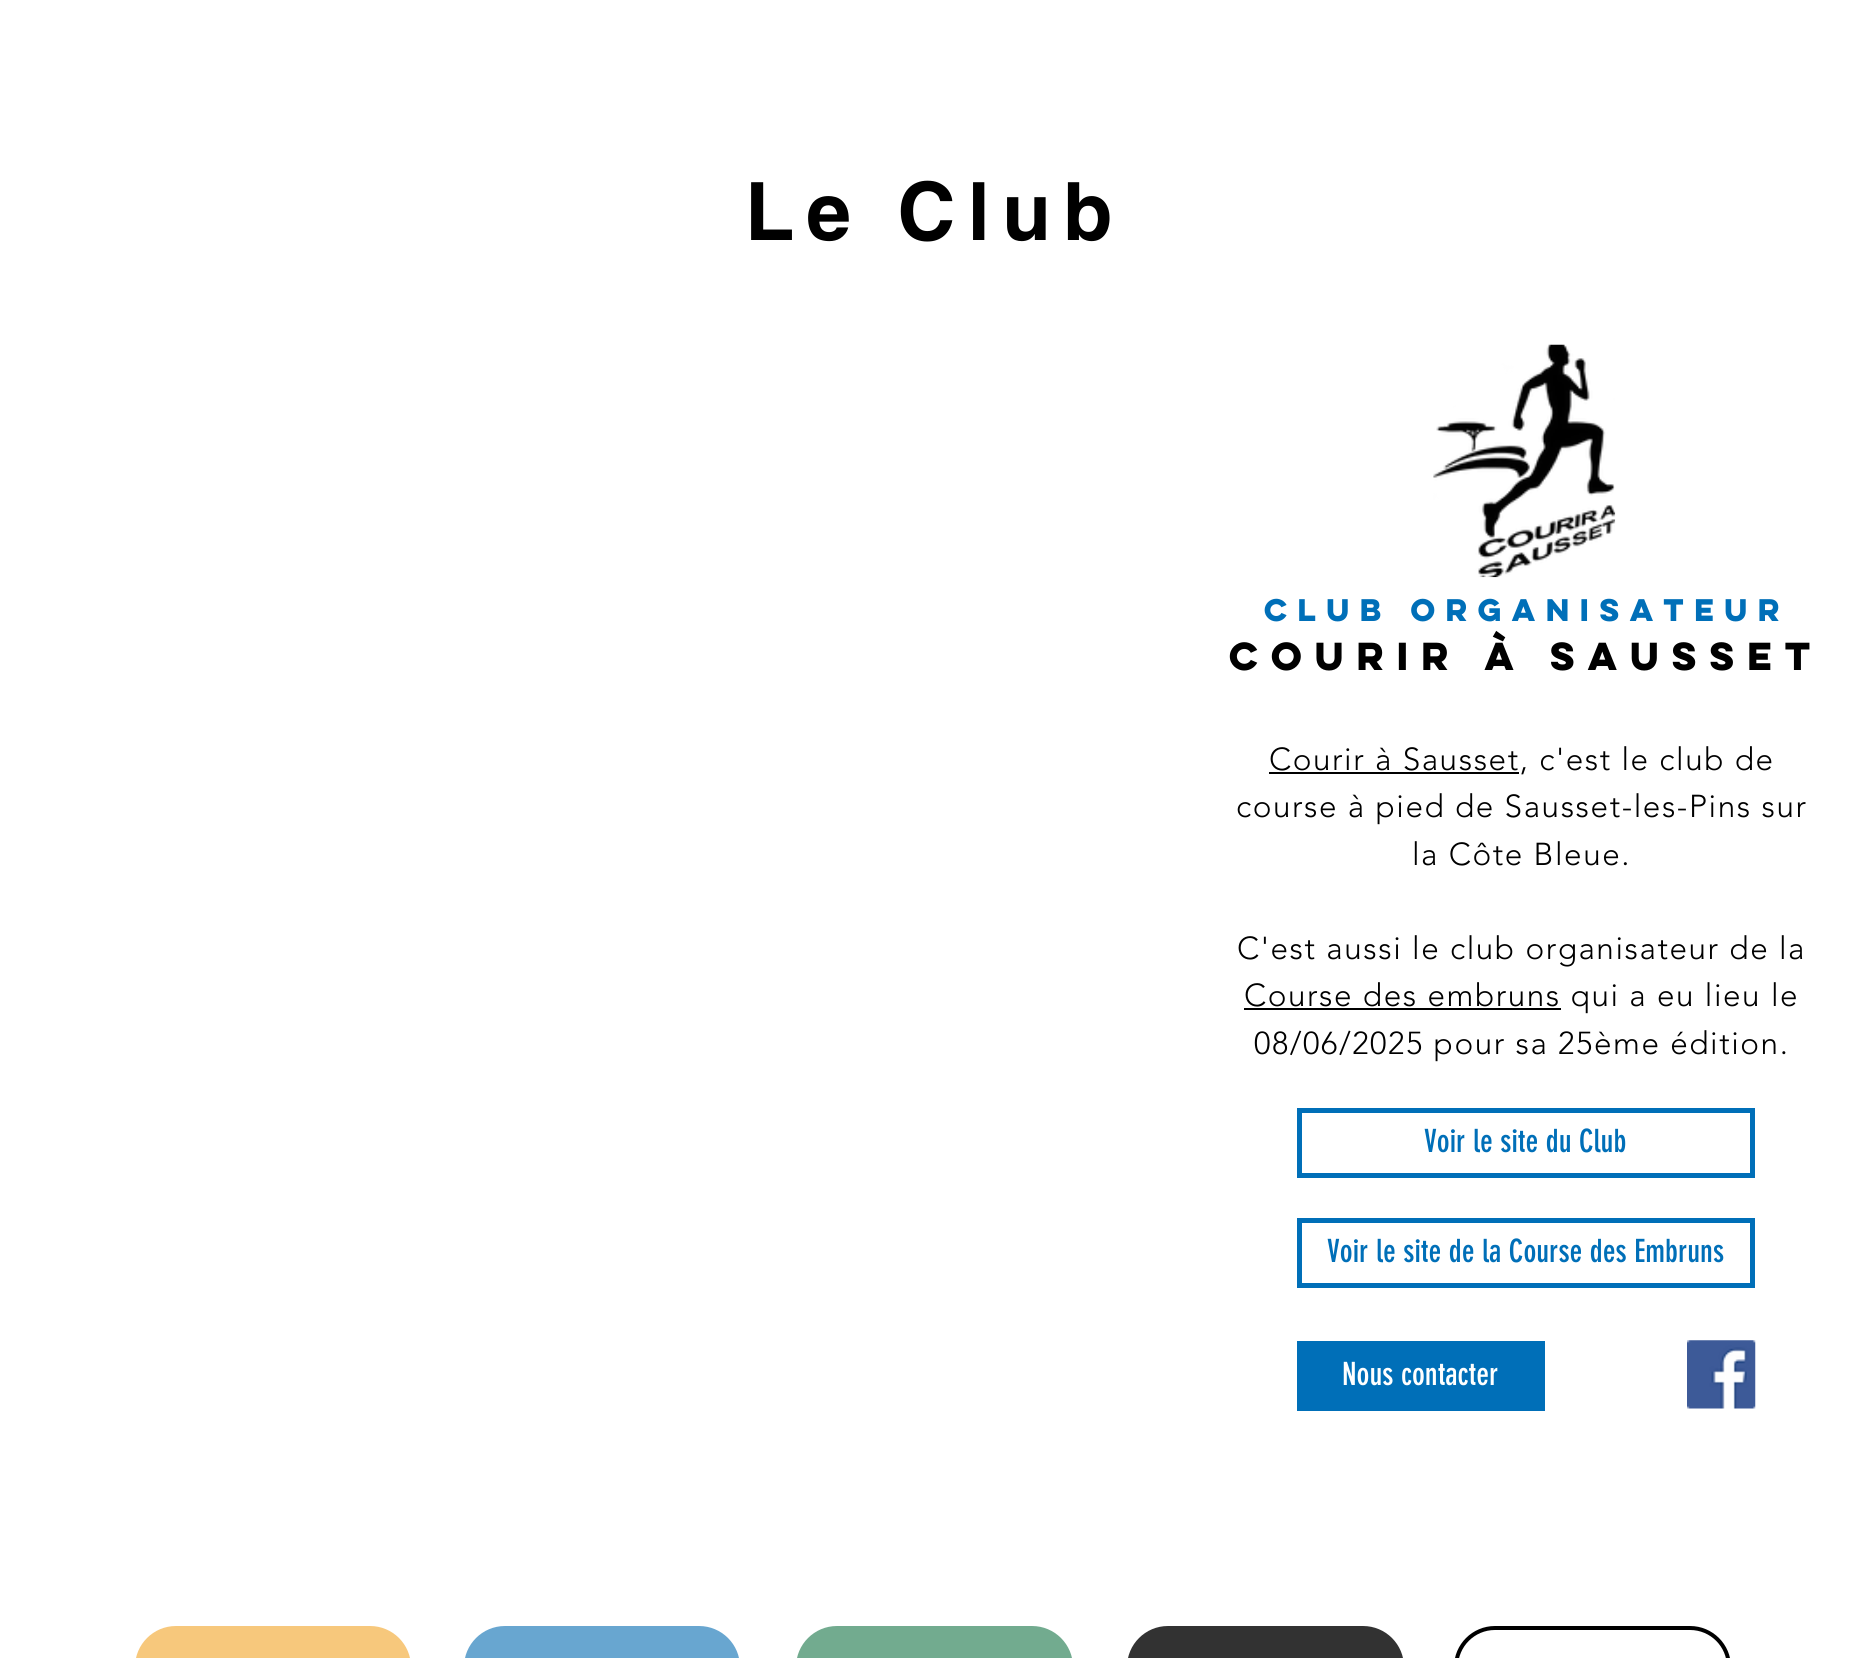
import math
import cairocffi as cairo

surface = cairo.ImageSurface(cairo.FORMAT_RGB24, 1868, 1658)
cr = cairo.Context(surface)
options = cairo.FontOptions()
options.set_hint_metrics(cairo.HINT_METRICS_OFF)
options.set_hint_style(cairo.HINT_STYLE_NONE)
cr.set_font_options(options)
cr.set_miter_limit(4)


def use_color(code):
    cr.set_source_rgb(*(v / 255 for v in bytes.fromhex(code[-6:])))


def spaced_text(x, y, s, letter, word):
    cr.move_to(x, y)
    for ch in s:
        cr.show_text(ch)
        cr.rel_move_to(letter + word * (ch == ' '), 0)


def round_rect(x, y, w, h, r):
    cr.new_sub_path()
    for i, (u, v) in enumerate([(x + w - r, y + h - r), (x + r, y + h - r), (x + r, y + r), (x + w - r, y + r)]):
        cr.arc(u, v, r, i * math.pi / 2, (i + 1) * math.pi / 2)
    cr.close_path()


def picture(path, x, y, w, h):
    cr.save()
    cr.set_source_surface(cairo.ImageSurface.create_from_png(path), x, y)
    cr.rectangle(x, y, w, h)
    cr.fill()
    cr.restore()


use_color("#ffffff")
cr.paint()
cr.select_font_face("helvetica", cairo.FONT_SLANT_NORMAL, cairo.FONT_WEIGHT_BOLD)
cr.set_font_size(80.5)
use_color("#000000")
spaced_text(745, 240, "Le Club", 12, 0)
picture("img1.png", 1433, 344, 183, 234)
cr.select_font_face("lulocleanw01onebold", cairo.FONT_SLANT_NORMAL, cairo.FONT_WEIGHT_BOLD)
cr.set_font_size(28)
use_color("#006fb8")
spaced_text(1264, 621, "Club organisateuR", 4.25, 0)
cr.set_font_size(35)
use_color("#000000")
spaced_text(1229, 670, "Courir À sausseT", 5.25, 0)
cr.rectangle(1269, 772, 250, 2)
cr.fill()
cr.select_font_face("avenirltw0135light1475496 Light")
cr.set_font_size(31.5)
spaced_text(1269, 770, "Courir à Sausset, c'est le club de", 1.55, 0)
spaced_text(1236, 817, "course à pied de Sausset-les-Pins sur", 1.55, 0)
spaced_text(1412, 865, "la Côte Bleue.", 1.55, 0)
spaced_text(1237, 959, "C'est aussi le club organisateur de la", 1.55, 0)
cr.rectangle(1244, 1008, 317, 2)
cr.fill()
spaced_text(1244, 1006, "Course des embruns qui a eu lieu le", 1.55, 0)
spaced_text(1254, 1054, "08/06/2025 pour sa 25ème édition.", 1.55, 0)
cr.rectangle(1299.5, 1110.5, 453, 65)
use_color("#006fb8")
cr.set_line_width(5)
cr.stroke()
cr.select_font_face("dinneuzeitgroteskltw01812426")
cr.move_to(1424, 1152)
cr.show_text("Voir le site du Club")
cr.rectangle(1299.5, 1220.5, 453, 65)
cr.stroke()
cr.move_to(1327, 1262)
cr.show_text("Voir le site de la Course des Embruns")
cr.rectangle(1297, 1341, 248, 70)
cr.fill()
use_color("#ffffff")
cr.move_to(1342, 1385)
cr.show_text("Nous contacter")
picture("img2.png", 1687, 1340, 69, 69)
use_color("#f7c87c")
round_rect(135, 1626, 276, 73, 41)
cr.fill()
use_color("#68a6d0")
round_rect(464, 1626, 276, 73, 41)
cr.fill()
use_color("#72ab8f")
round_rect(796, 1626, 277, 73, 41)
cr.fill()
use_color("#323232")
round_rect(1127, 1626, 277, 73, 41)
cr.fill()
round_rect(1456, 1628, 273, 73, 39)
use_color("#000000")
cr.set_line_width(4)
cr.stroke()
surface.write_to_png("result.png")
